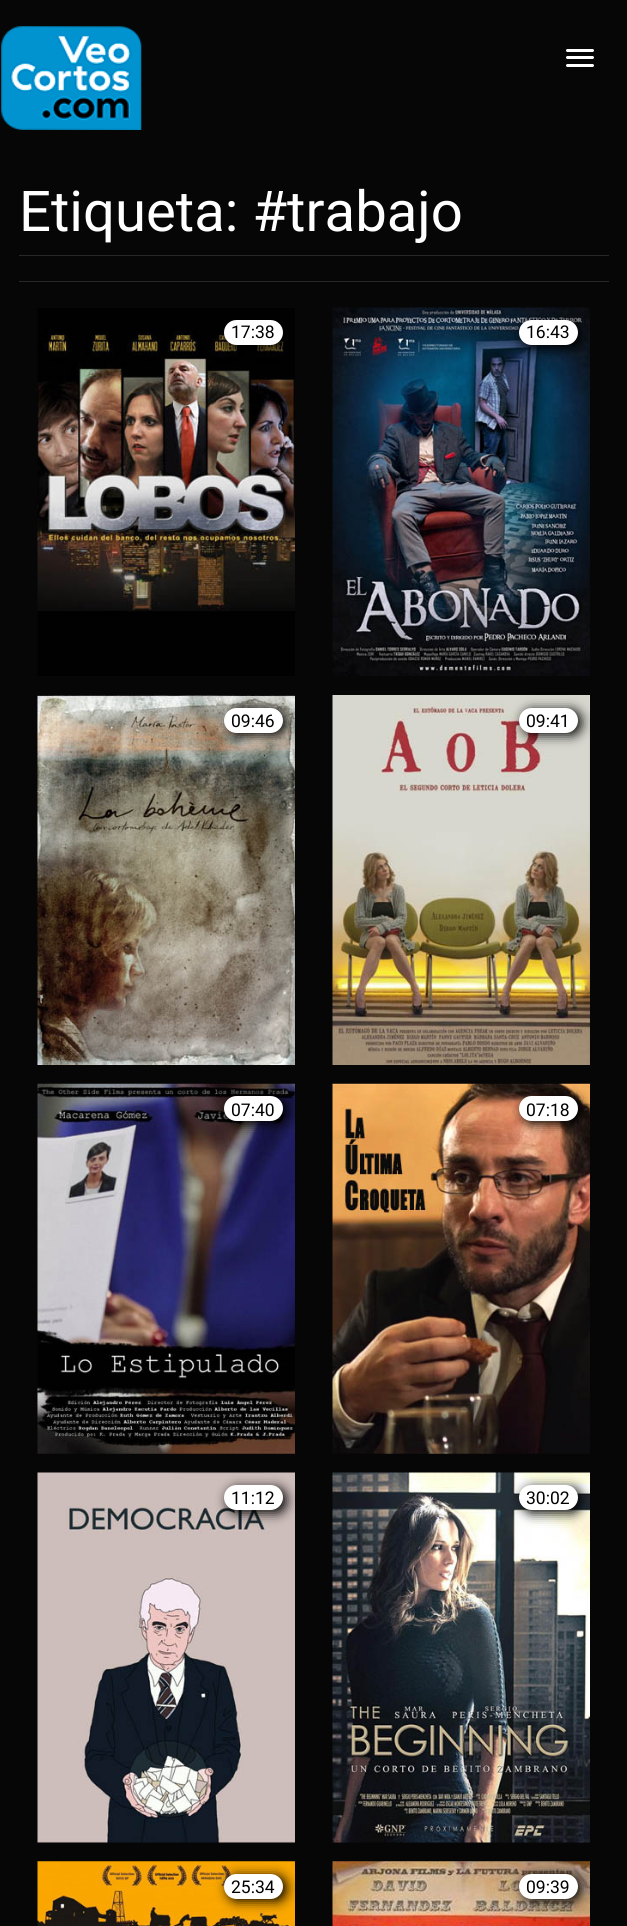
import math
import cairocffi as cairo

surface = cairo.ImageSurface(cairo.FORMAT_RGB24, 627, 1926)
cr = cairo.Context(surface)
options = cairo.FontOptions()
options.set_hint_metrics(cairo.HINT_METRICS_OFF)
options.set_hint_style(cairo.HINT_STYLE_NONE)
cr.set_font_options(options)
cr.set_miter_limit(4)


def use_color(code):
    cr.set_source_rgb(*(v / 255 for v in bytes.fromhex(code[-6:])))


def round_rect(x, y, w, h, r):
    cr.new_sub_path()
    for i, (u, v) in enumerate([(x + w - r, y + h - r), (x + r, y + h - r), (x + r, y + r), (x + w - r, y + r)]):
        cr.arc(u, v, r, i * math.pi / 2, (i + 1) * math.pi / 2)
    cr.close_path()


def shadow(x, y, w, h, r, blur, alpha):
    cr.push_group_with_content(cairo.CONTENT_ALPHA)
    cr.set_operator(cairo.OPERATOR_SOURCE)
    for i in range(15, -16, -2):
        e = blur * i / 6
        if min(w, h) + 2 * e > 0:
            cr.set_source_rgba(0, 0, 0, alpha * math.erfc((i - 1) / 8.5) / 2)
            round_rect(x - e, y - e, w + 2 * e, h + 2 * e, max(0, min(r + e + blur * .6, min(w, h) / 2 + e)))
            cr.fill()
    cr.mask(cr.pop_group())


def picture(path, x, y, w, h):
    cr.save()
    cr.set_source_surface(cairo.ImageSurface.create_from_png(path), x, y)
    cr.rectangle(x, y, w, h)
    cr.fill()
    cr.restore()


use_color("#060606")
cr.paint()
picture("img1.png", 1, 26, 141, 104)
use_color("#ffffff")
round_rect(566, 49, 28, 3, 1.5)
cr.fill()
round_rect(566, 56, 28, 3, 1.5)
cr.fill()
round_rect(566, 64, 28, 3, 1.5)
cr.fill()
use_color("#282828")
cr.rectangle(19, 255, 590, 1)
cr.fill()
cr.select_font_face("Roboto")
cr.set_font_size(56.25)
use_color("#ffffff")
cr.move_to(19, 231)
cr.show_text("Etiqueta: #trabajo")
use_color("#282828")
cr.rectangle(19, 281, 590, 1)
cr.fill()
picture("img2.png", 37, 308, 258, 368)
use_color("#000000")
shadow(228, 323, 58, 25, 12.5, 6, 1)
use_color("#ffffff")
round_rect(224, 320, 59, 25, 12.5)
cr.fill()
cr.set_font_size(17.5)
use_color("#000000")
cr.move_to(231, 338)
cr.show_text("17:38")
picture("img3.png", 332, 307, 258, 369)
use_color("#000000")
shadow(523, 323, 58, 25, 12.5, 6, 1)
use_color("#ffffff")
round_rect(519, 320, 59, 25, 12.5)
cr.fill()
use_color("#000000")
cr.move_to(526, 338)
cr.show_text("16:43")
picture("img4.png", 37, 695, 258, 370)
use_color("#000000")
shadow(228, 710, 58, 25, 12.5, 6, 1)
use_color("#ffffff")
round_rect(224, 708, 59, 25, 12.5)
cr.fill()
use_color("#000000")
cr.move_to(231, 727)
cr.show_text("09:46")
picture("img5.png", 332, 695, 258, 370)
use_color("#000000")
shadow(523, 710, 58, 25, 12.5, 6, 1)
use_color("#ffffff")
round_rect(519, 708, 59, 25, 12.5)
cr.fill()
use_color("#000000")
cr.move_to(526, 727)
cr.show_text("09:41")
picture("img6.png", 37, 1083, 258, 371)
use_color("#000000")
shadow(228, 1099, 58, 25, 12.5, 6, 1)
use_color("#ffffff")
round_rect(224, 1096, 59, 25, 12.5)
cr.fill()
use_color("#000000")
cr.move_to(231, 1116)
cr.show_text("07:40")
picture("img7.png", 332, 1083, 258, 371)
use_color("#000000")
shadow(523, 1099, 58, 25, 12.5, 6, 1)
use_color("#ffffff")
round_rect(519, 1096, 59, 25, 12.5)
cr.fill()
use_color("#000000")
cr.move_to(526, 1116)
cr.show_text("07:18")
picture("img8.png", 37, 1472, 258, 371)
use_color("#000000")
shadow(228, 1488, 58, 25, 12.5, 6, 1)
use_color("#ffffff")
round_rect(224, 1485, 59, 25, 12.5)
cr.fill()
use_color("#000000")
cr.move_to(231, 1504)
cr.show_text("11:12")
picture("img9.png", 332, 1472, 258, 371)
use_color("#000000")
shadow(523, 1488, 58, 25, 12.5, 6, 1)
use_color("#ffffff")
round_rect(519, 1485, 59, 25, 12.5)
cr.fill()
use_color("#000000")
cr.move_to(526, 1504)
cr.show_text("30:02")
picture("img10.png", 37, 1861, 258, 65)
use_color("#000000")
shadow(228, 1876, 58, 25, 12.5, 6, 1)
use_color("#ffffff")
round_rect(224, 1874, 59, 25, 12.5)
cr.fill()
use_color("#000000")
cr.move_to(231, 1893)
cr.show_text("25:34")
picture("img11.png", 332, 1861, 258, 65)
use_color("#000000")
shadow(523, 1876, 58, 25, 12.5, 6, 1)
use_color("#ffffff")
round_rect(519, 1874, 59, 25, 12.5)
cr.fill()
use_color("#000000")
cr.move_to(526, 1893)
cr.show_text("09:39")
surface.write_to_png("result.png")
